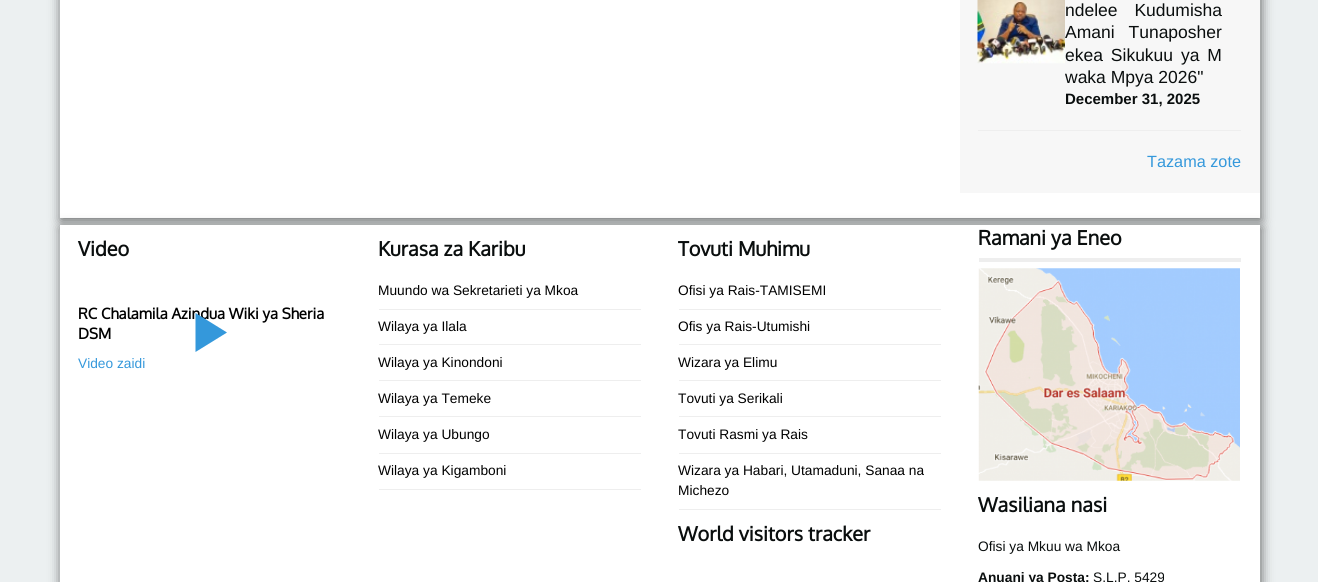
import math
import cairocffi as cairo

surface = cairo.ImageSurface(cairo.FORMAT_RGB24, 1318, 582)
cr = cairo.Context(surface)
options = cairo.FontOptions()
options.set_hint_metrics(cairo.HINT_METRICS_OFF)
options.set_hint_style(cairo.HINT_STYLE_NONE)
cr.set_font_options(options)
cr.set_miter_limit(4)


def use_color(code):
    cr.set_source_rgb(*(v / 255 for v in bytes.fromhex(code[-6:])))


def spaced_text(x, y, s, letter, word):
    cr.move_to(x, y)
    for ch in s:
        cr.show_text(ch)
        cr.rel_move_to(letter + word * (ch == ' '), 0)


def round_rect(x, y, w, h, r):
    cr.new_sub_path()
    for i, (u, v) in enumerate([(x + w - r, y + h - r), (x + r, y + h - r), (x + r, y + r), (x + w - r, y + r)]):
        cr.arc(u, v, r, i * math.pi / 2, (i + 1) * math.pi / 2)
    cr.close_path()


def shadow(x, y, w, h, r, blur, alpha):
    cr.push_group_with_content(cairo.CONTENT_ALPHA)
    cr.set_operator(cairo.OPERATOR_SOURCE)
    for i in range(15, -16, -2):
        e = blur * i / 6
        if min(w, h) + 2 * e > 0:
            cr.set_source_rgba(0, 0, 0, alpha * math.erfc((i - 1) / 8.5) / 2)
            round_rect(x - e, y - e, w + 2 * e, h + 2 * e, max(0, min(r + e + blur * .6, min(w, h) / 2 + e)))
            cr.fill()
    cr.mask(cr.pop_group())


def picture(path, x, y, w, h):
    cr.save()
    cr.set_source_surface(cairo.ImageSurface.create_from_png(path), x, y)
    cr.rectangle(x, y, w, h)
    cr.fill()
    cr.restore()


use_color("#ecf0f1")
cr.paint()
use_color("#323232")
shadow(61, -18, 1200, 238, 0, 6, 0.75)
use_color("#ffffff")
cr.rectangle(60, 0, 1200, 218)
cr.fill()
use_color("#f7f7f7")
cr.rectangle(960, 0, 300, 193)
cr.fill()
use_color("#eeeeee")
cr.rectangle(978, 130, 263, 1)
cr.fill()
picture("img1.png", 977, 0, 88, 64)
cr.select_font_face("Liberation Sans")
cr.set_font_size(17.5)
use_color("#0a0e0e")
spaced_text(1065, 16, "ndelee Kudumisha", 0, 12)
spaced_text(1065, 38, "Amani Tunaposher", 0, 9)
spaced_text(1065, 61, "ekea Sikukuu ya M", 0, 3)
cr.move_to(1065, 83)
cr.show_text("waka Mpya 2026\"")
cr.select_font_face("Liberation Sans", cairo.FONT_SLANT_NORMAL, cairo.FONT_WEIGHT_BOLD)
cr.set_font_size(15)
cr.move_to(1065, 104)
cr.show_text("December 31, 2025")
cr.select_font_face("Liberation Sans")
cr.set_font_size(16.25)
use_color("#3498db")
cr.move_to(1147, 167)
cr.show_text("Tazama zote")
use_color("#323232")
shadow(61, 228, 1200, 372, 0, 6, 0.75)
use_color("#ffffff")
cr.rectangle(60, 225, 1200, 357)
cr.fill()
cr.select_font_face("Oxygen", cairo.FONT_SLANT_NORMAL, cairo.FONT_WEIGHT_BOLD)
cr.set_font_size(19.9)
use_color("#0a0e0e")
cr.move_to(78, 256)
cr.show_text("Video")
cr.set_font_size(15)
use_color("#000000")
cr.move_to(78, 319)
cr.show_text("RC Chalamila Azindua Wiki ya Sheria")
cr.move_to(78, 339)
cr.show_text("DSM")
use_color("#3498db")
cr.new_path()
cr.move_to(195.5, 313)
cr.line_to(195.5, 352)
cr.line_to(227, 332.5)
cr.close_path()
cr.fill()
cr.select_font_face("Liberation Sans")
cr.set_font_size(13.75)
cr.move_to(78, 368)
cr.show_text("Video zaidi")
cr.select_font_face("Oxygen", cairo.FONT_SLANT_NORMAL, cairo.FONT_WEIGHT_BOLD)
cr.set_font_size(19.9)
use_color("#0a0e0e")
cr.move_to(378, 256)
cr.show_text("Kurasa za Karibu")
use_color("#eeeeee")
cr.rectangle(379, 309, 262, 1)
cr.fill()
cr.select_font_face("Liberation Sans")
cr.set_font_size(13.75)
use_color("#000000")
cr.move_to(378, 295)
cr.show_text("Muundo wa Sekretarieti ya Mkoa")
use_color("#eeeeee")
cr.rectangle(379, 344, 262, 1)
cr.fill()
use_color("#000000")
cr.move_to(378, 331)
cr.show_text("Wilaya ya Ilala")
use_color("#eeeeee")
cr.rectangle(379, 380, 262, 1)
cr.fill()
use_color("#000000")
cr.move_to(378, 367)
cr.show_text("Wilaya ya Kinondoni")
use_color("#eeeeee")
cr.rectangle(379, 416, 262, 1)
cr.fill()
use_color("#000000")
cr.move_to(378, 403)
cr.show_text("Wilaya ya Temeke")
use_color("#eeeeee")
cr.rectangle(379, 453, 262, 1)
cr.fill()
use_color("#000000")
cr.move_to(378, 439)
cr.show_text("Wilaya ya Ubungo")
use_color("#eeeeee")
cr.rectangle(379, 489, 262, 1)
cr.fill()
use_color("#000000")
cr.move_to(378, 475)
cr.show_text("Wilaya ya Kigamboni")
cr.select_font_face("Oxygen", cairo.FONT_SLANT_NORMAL, cairo.FONT_WEIGHT_BOLD)
cr.set_font_size(19.9)
use_color("#0a0e0e")
cr.move_to(678, 256)
cr.show_text("Tovuti Muhimu")
use_color("#eeeeee")
cr.rectangle(679, 309, 262, 1)
cr.fill()
cr.select_font_face("Liberation Sans")
cr.set_font_size(13.75)
use_color("#000000")
cr.move_to(678, 295)
cr.show_text("Ofisi ya Rais-TAMISEMI")
use_color("#eeeeee")
cr.rectangle(679, 344, 262, 1)
cr.fill()
use_color("#000000")
cr.move_to(678, 331)
cr.show_text("Ofis ya Rais-Utumishi")
use_color("#eeeeee")
cr.rectangle(679, 380, 262, 1)
cr.fill()
use_color("#000000")
cr.move_to(678, 367)
cr.show_text("Wizara ya Elimu")
use_color("#eeeeee")
cr.rectangle(679, 416, 262, 1)
cr.fill()
use_color("#000000")
cr.move_to(678, 403)
cr.show_text("Tovuti ya Serikali")
use_color("#eeeeee")
cr.rectangle(679, 453, 262, 1)
cr.fill()
use_color("#000000")
cr.move_to(678, 439)
cr.show_text("Tovuti Rasmi ya Rais")
use_color("#eeeeee")
cr.rectangle(679, 509, 262, 1)
cr.fill()
use_color("#000000")
cr.move_to(678, 475)
cr.show_text("Wizara ya Habari, Utamaduni, Sanaa na")
cr.move_to(678, 495)
cr.show_text("Michezo")
cr.select_font_face("Oxygen", cairo.FONT_SLANT_NORMAL, cairo.FONT_WEIGHT_BOLD)
cr.set_font_size(19.9)
use_color("#0a0e0e")
cr.move_to(678, 541)
cr.show_text("World visitors tracker")
use_color("#eeeeee")
cr.rectangle(979, 258, 262, 4)
cr.fill()
use_color("#0a0e0e")
cr.move_to(978, 245)
cr.show_text("Ramani ya Eneo")
picture("img2.png", 978, 268, 262, 213)
cr.move_to(978, 512)
cr.show_text("Wasiliana nasi")
cr.select_font_face("Liberation Sans")
cr.set_font_size(13.75)
cr.move_to(978, 551)
cr.show_text("Ofisi ya Mkuu wa Mkoa")
cr.select_font_face("Liberation Sans", cairo.FONT_SLANT_NORMAL, cairo.FONT_WEIGHT_BOLD)
cr.move_to(978, 582)
cr.show_text("Anuani ya Posta:")
cr.select_font_face("Liberation Sans")
cr.move_to(1093, 582)
cr.show_text("S.L.P. 5429")
surface.write_to_png("result.png")
